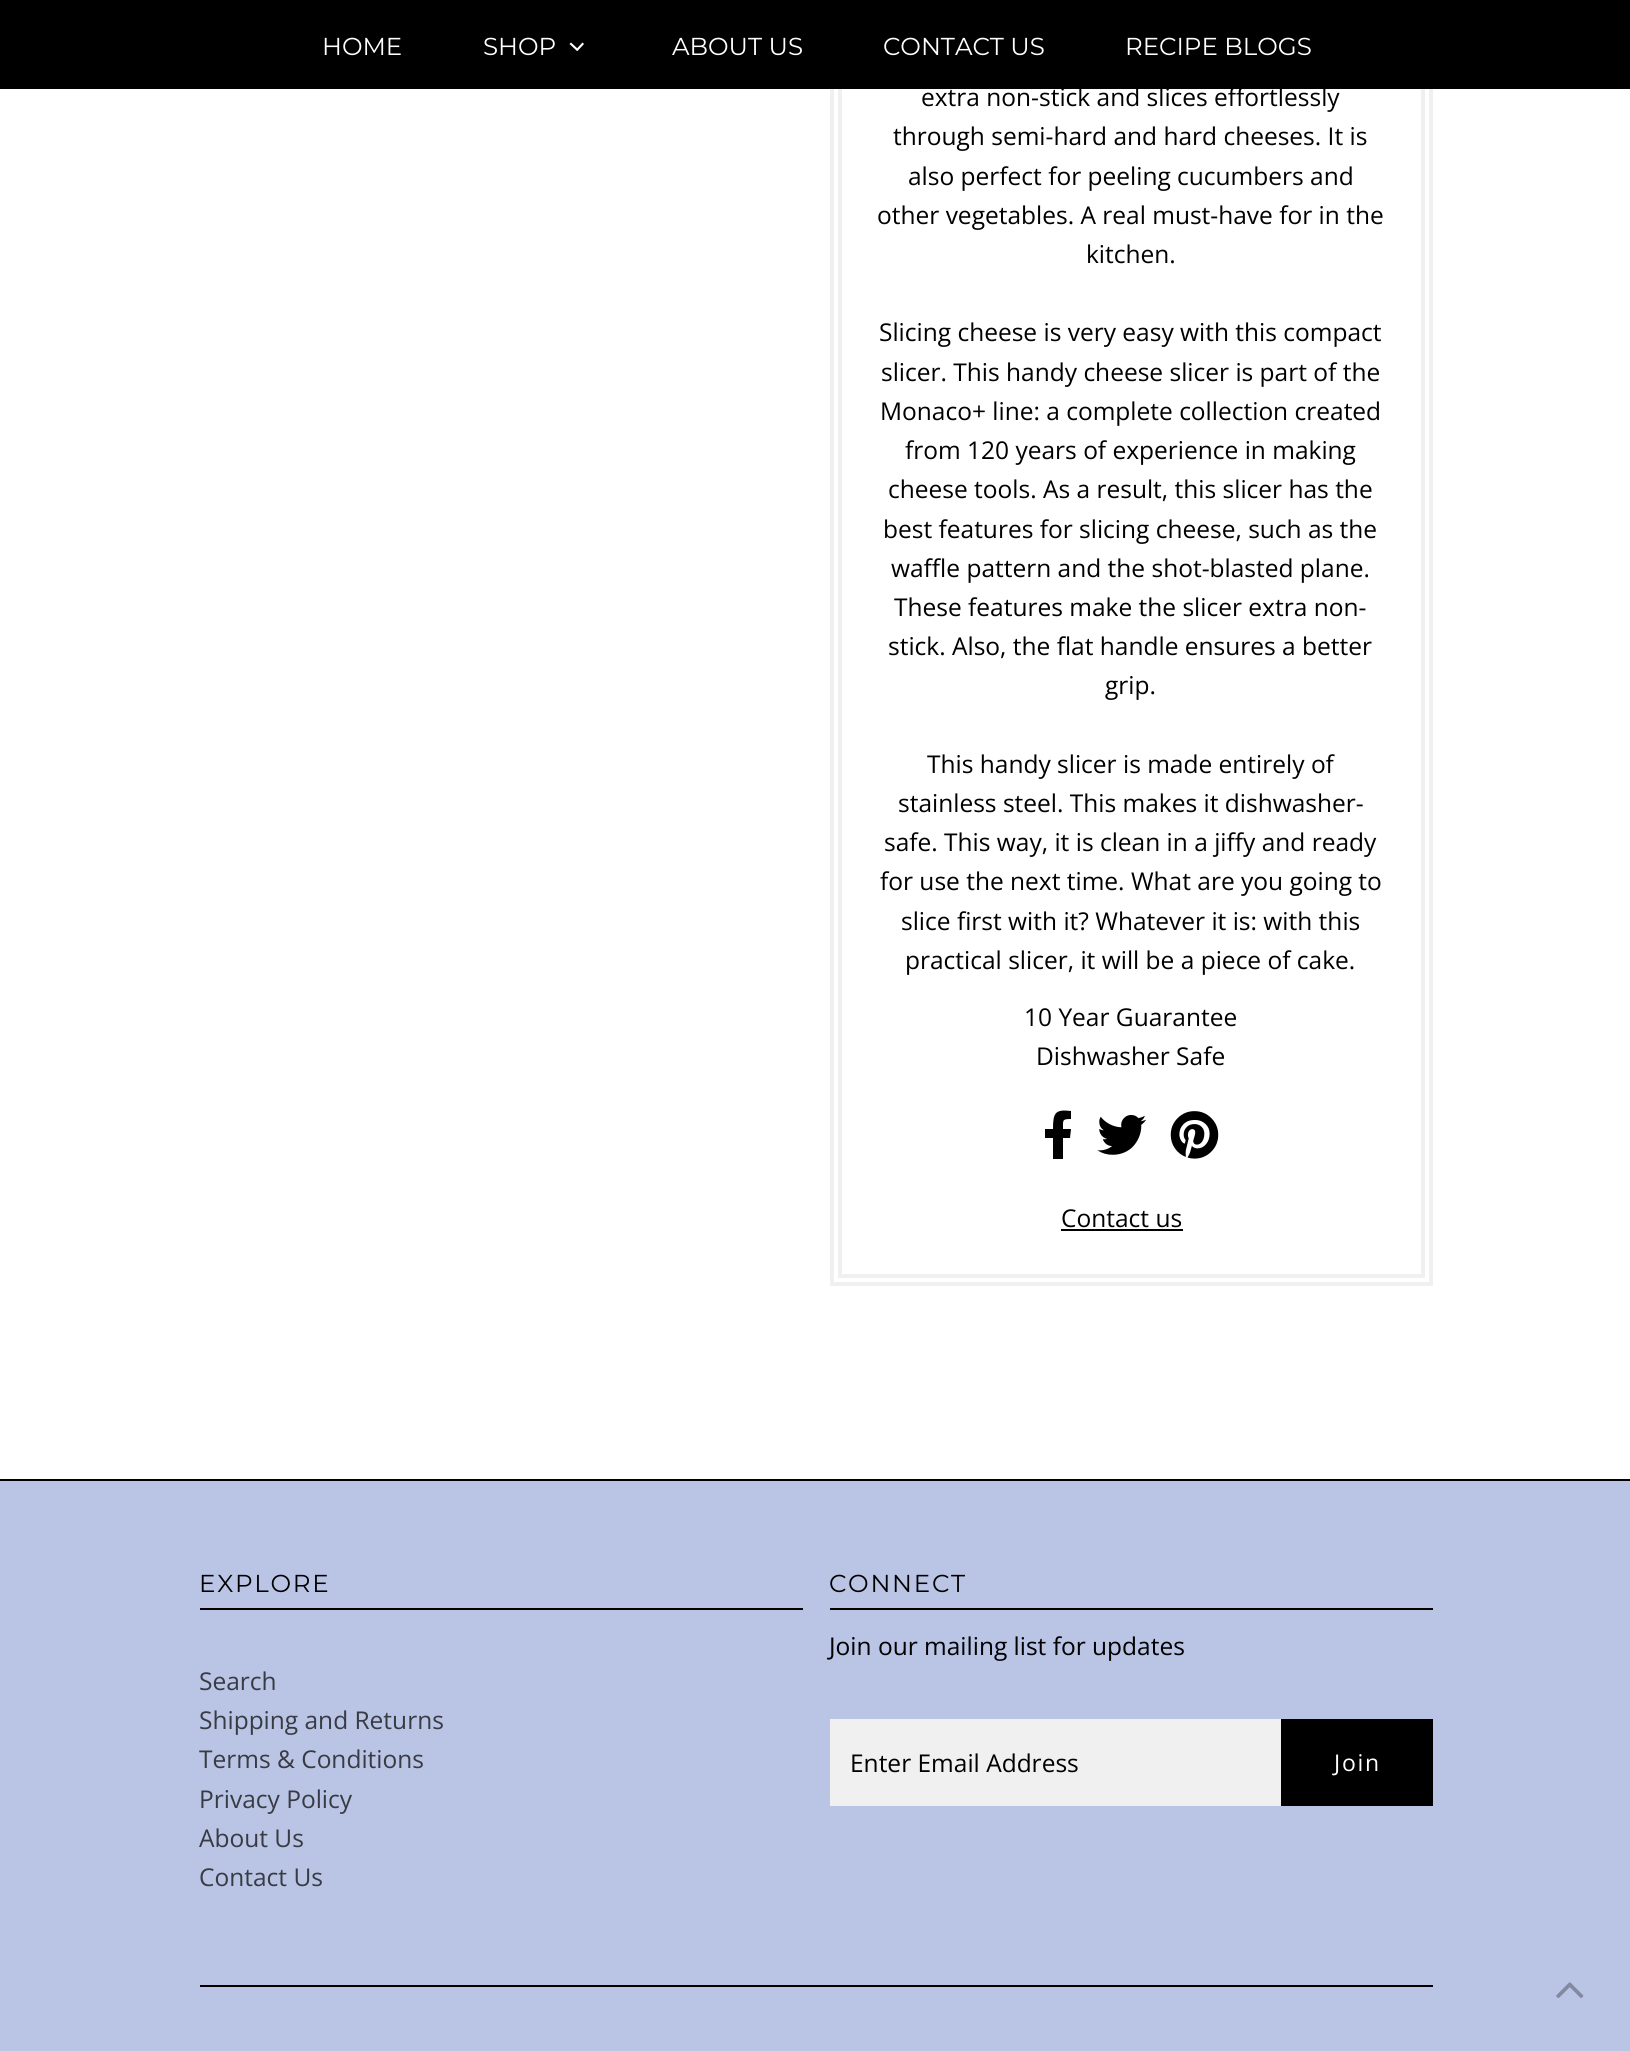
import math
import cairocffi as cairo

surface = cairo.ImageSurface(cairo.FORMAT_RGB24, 1630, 2051)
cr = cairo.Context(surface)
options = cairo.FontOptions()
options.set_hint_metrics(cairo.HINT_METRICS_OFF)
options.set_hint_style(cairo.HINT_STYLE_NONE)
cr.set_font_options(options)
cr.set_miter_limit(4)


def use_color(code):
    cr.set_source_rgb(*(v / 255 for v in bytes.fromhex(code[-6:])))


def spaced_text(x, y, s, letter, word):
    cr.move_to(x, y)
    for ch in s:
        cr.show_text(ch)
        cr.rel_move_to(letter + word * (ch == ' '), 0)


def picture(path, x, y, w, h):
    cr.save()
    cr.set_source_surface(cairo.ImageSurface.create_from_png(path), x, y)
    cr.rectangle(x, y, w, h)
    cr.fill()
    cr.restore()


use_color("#ffffff")
cr.paint()
cr.rectangle(832, -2, 599, 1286)
use_color("#f0f0f0")
cr.set_line_width(4)
cr.stroke()
cr.rectangle(840, -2, 583, 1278)
cr.stroke()
use_color("#000000")
cr.rectangle(0, 0, 1630, 89)
cr.fill()
cr.select_font_face("Montserrat Thin")
cr.set_font_size(24.5)
use_color("#ffffff")
cr.move_to(322, 55)
cr.show_text("HOME")
cr.move_to(483, 55)
cr.show_text("SHOP")
cr.new_path()
cr.move_to(582.5, 42.5)
cr.line_to(584, 44)
cr.line_to(577.5, 51)
cr.line_to(576, 49.5)
cr.close_path()
cr.fill()
cr.new_path()
cr.move_to(571, 42.5)
cr.line_to(578.5, 49.5)
cr.line_to(577, 51)
cr.line_to(569.5, 44)
cr.close_path()
cr.fill()
cr.move_to(672, 55)
cr.show_text("ABOUT US")
cr.move_to(883, 55)
cr.show_text("CONTACT US")
cr.move_to(1125, 55)
cr.show_text("RECIPE BLOGS")
cr.select_font_face("Open Sans")
use_color("#000000")
cr.move_to(921, 106)
cr.show_text("extra non-stick and slices effortlessly")
cr.move_to(893, 145)
cr.show_text("through semi-hard and hard cheeses. It is")
cr.move_to(908, 185)
cr.show_text("also perfect for peeling cucumbers and")
cr.move_to(877, 224)
cr.show_text("other vegetables. A real must-have for in the")
cr.move_to(1086, 263)
cr.show_text("kitchen.")
cr.move_to(879, 341)
cr.show_text("Slicing cheese is very easy with this compact")
cr.move_to(881, 381)
cr.show_text("slicer. This handy cheese slicer is part of the")
cr.move_to(880, 420)
cr.show_text("Monaco+ line: a complete collection created")
cr.move_to(905, 459)
cr.show_text("from 120 years of experience in making")
cr.move_to(888, 498)
cr.show_text("cheese tools. As a result, this slicer has the")
cr.move_to(883, 538)
cr.show_text("best features for slicing cheese, such as the")
cr.move_to(891, 577)
cr.show_text("waffle pattern and the shot-blasted plane.")
cr.move_to(894, 616)
cr.show_text("These features make the slicer extra non-")
cr.move_to(888, 655)
cr.show_text("stick. Also, the flat handle ensures a better")
cr.move_to(1105, 694)
cr.show_text("grip.")
cr.move_to(927, 773)
cr.show_text("This handy slicer is made entirely of")
cr.move_to(898, 812)
cr.show_text("stainless steel. This makes it dishwasher-")
cr.move_to(884, 851)
cr.show_text("safe. This way, it is clean in a jiffy and ready")
cr.move_to(880, 890)
cr.show_text("for use the next time. What are you going to")
cr.move_to(901, 930)
cr.show_text("slice first with it? Whatever it is: with this")
cr.move_to(905, 969)
cr.show_text("practical slicer, it will be a piece of cake.")
cr.move_to(1024, 1026)
cr.show_text("10 Year Guarantee")
cr.move_to(1036, 1065)
cr.show_text("Dishwasher Safe")
cr.new_path()
cr.move_to(1070, 1138)
cr.line_to(1063, 1138)
cr.line_to(1063, 1159)
cr.line_to(1053, 1159)
cr.line_to(1053, 1138)
cr.line_to(1045, 1138)
cr.line_to(1045, 1129)
cr.line_to(1053, 1129)
cr.curve_to(1053, 1113, 1055, 1109, 1071, 1111)
cr.line_to(1071, 1119)
cr.curve_to(1062, 1119, 1063, 1120, 1063, 1129)
cr.line_to(1071, 1129)
cr.close_path()
cr.fill()
picture("img1.png", 1097, 1115, 50, 40)
picture("img2.png", 1170, 1111, 49, 48)
cr.move_to(1061, 1227)
cr.show_text("Contact us")
cr.rectangle(1061, 1229, 122, 2)
cr.fill()
use_color("#bac4e4")
cr.rectangle(0, 1481, 1630, 570)
cr.fill()
use_color("#000000")
cr.rectangle(0, 1479, 1630, 2)
cr.fill()
cr.rectangle(200, 1608, 603, 2)
cr.fill()
cr.select_font_face("Montserrat Thin")
spaced_text(199, 1592, "EXPLORE", 1.75, 0)
cr.select_font_face("Open Sans")
use_color("#383b44")
cr.move_to(199, 1690)
cr.show_text("Search")
cr.move_to(199, 1729)
cr.show_text("Shipping and Returns")
cr.move_to(199, 1768)
cr.show_text("Terms & Conditions")
cr.move_to(199, 1808)
cr.show_text("Privacy Policy")
cr.move_to(199, 1847)
cr.show_text("About Us")
cr.move_to(199, 1886)
cr.show_text("Contact Us")
use_color("#000000")
cr.rectangle(830, 1608, 603, 2)
cr.fill()
cr.select_font_face("Montserrat Thin")
spaced_text(829, 1592, "CONNECT", 1.75, 0)
cr.select_font_face("Open Sans")
cr.move_to(829, 1655)
cr.show_text("Join our mailing list for updates")
use_color("#f0f0f0")
cr.rectangle(830, 1719, 451, 87)
cr.fill()
use_color("#000000")
cr.move_to(850, 1772)
cr.show_text("Enter Email Address")
cr.rectangle(1281, 1719, 152, 87)
cr.fill()
cr.set_font_size(23)
use_color("#ffffff")
spaced_text(1334, 1771, "Join", 1.75, 0)
use_color("#000000")
cr.rectangle(200, 1985, 1233, 2)
cr.fill()
picture("img3.png", 1556, 1982, 28, 16)
surface.write_to_png("result.png")
